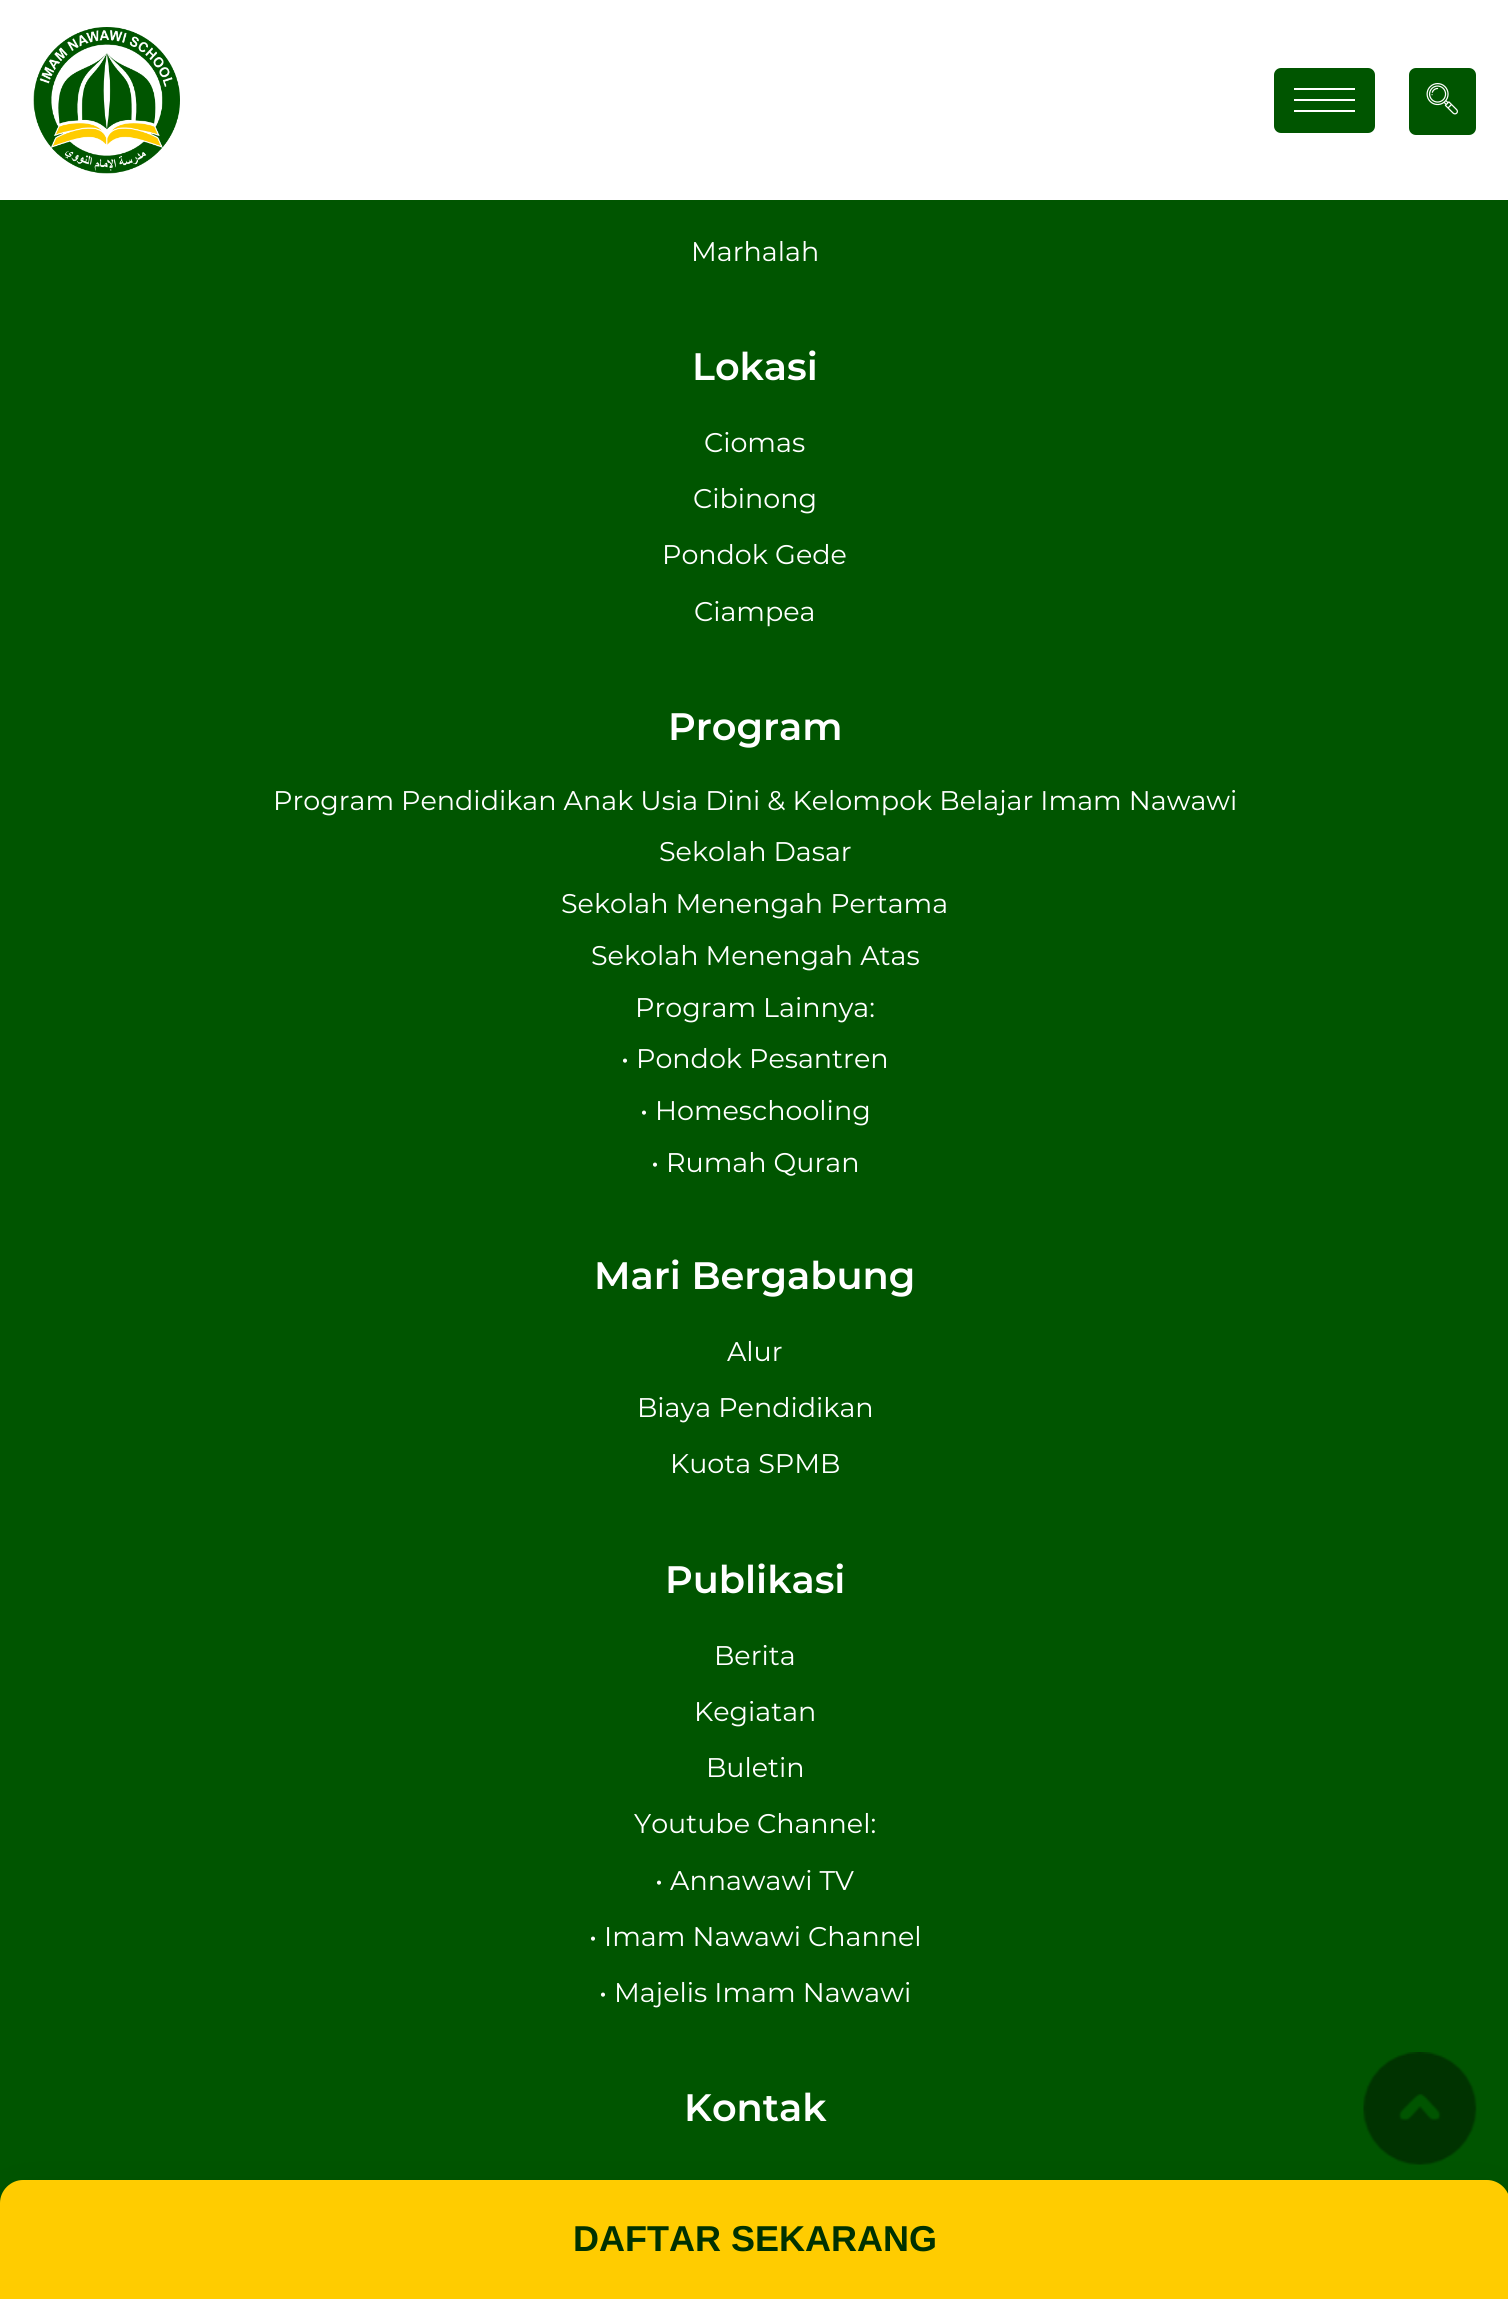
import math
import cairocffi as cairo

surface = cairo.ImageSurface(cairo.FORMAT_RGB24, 1508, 2299)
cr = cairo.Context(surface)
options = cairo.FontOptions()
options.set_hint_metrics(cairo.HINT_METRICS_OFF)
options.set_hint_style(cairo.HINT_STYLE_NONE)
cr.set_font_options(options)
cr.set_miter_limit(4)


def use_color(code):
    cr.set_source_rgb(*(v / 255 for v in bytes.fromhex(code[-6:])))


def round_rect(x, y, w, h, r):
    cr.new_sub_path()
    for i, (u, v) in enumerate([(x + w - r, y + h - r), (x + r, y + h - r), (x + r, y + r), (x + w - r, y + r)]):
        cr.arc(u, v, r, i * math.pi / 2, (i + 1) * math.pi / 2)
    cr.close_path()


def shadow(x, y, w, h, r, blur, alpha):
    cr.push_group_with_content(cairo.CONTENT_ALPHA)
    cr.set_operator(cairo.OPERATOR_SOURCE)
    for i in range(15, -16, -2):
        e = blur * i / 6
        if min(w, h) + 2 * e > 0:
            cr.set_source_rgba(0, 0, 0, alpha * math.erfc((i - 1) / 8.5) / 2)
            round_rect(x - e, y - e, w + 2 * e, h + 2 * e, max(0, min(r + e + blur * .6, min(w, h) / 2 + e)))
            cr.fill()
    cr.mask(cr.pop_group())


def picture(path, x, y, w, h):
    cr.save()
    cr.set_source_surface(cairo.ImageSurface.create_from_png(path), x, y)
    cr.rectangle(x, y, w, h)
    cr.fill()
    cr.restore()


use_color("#005500")
cr.paint()
use_color("#ffffff")
cr.rectangle(0, 0, 1508, 200)
cr.fill()
picture("img1.png", 33, 27, 147, 147)
use_color("#005500")
round_rect(1275, 69, 99, 63, 6)
cr.fill_preserve()
cr.stroke()
use_color("#ffffff")
cr.rectangle(1294, 88, 61, 2)
cr.fill()
cr.rectangle(1294, 99, 61, 2)
cr.fill()
cr.rectangle(1294, 110, 61, 2)
cr.fill()
use_color("#005500")
round_rect(1409, 68, 67, 67, 7)
cr.fill()
picture("img2.png", 1426, 83, 32, 32)
cr.select_font_face("Montserrat")
cr.set_font_size(27)
use_color("#ffffff")
cr.move_to(691, 261)
cr.show_text("Marhalah")
cr.select_font_face("Montserrat SemiBold")
cr.set_font_size(38.25)
cr.move_to(692, 380)
cr.show_text("Lokasi")
cr.select_font_face("Montserrat")
cr.set_font_size(27)
cr.move_to(704, 452)
cr.show_text("Ciomas")
cr.move_to(693, 508)
cr.show_text("Cibinong")
cr.move_to(662, 564)
cr.show_text("Pondok Gede")
cr.move_to(694, 621)
cr.show_text("Ciampea")
cr.select_font_face("Montserrat SemiBold")
cr.set_font_size(38.25)
cr.move_to(668, 740)
cr.show_text("Program")
cr.select_font_face("Montserrat")
cr.set_font_size(27)
cr.move_to(273, 810)
cr.show_text("Program Pendidikan Anak Usia Dini & Kelompok Belajar Imam Nawawi")
cr.move_to(659, 861)
cr.show_text("Sekolah Dasar")
cr.move_to(561, 913)
cr.show_text("Sekolah Menengah Pertama")
cr.move_to(591, 965)
cr.show_text("Sekolah Menengah Atas")
cr.move_to(635, 1017)
cr.show_text("Program Lainnya:")
cr.move_to(621, 1068)
cr.show_text("• Pondok Pesantren")
cr.move_to(640, 1120)
cr.show_text("• Homeschooling")
cr.move_to(651, 1172)
cr.show_text("• Rumah Quran")
cr.select_font_face("Montserrat SemiBold")
cr.set_font_size(38.25)
cr.move_to(594, 1289)
cr.show_text("Mari Bergabung")
cr.select_font_face("Montserrat")
cr.set_font_size(27)
cr.move_to(727, 1361)
cr.show_text("Alur")
cr.move_to(637, 1417)
cr.show_text("Biaya Pendidikan")
cr.move_to(670, 1473)
cr.show_text("Kuota SPMB")
cr.select_font_face("Montserrat SemiBold")
cr.set_font_size(38.25)
cr.move_to(665, 1593)
cr.show_text("Publikasi")
cr.select_font_face("Montserrat")
cr.set_font_size(27)
cr.move_to(714, 1665)
cr.show_text("Berita")
cr.move_to(694, 1721)
cr.show_text("Kegiatan")
cr.move_to(706, 1777)
cr.show_text("Buletin")
cr.move_to(634, 1833)
cr.show_text("Youtube Channel:")
cr.move_to(655, 1890)
cr.show_text("• Annawawi TV")
cr.move_to(589, 1946)
cr.show_text("• Imam Nawawi Channel")
cr.move_to(599, 2002)
cr.show_text("• Majelis Imam Nawawi")
cr.select_font_face("Montserrat SemiBold")
cr.set_font_size(38.25)
cr.move_to(684, 2121)
cr.show_text("Kontak")
picture("img3.png", 1363, 2052, 114, 113)
use_color("#000000")
shadow(0, 2194, 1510, 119, 23, 7, 0.23)
shadow(0, 2203, 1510, 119, 23, 22.5, 0.19)
use_color("#ffcc00")
cr.new_path()
cr.move_to(23, 2180)
cr.line_to(1487, 2180)
cr.curve_to(1499.5, 2180, 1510, 2190.5, 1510, 2203)
cr.line_to(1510, 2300)
cr.line_to(0, 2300)
cr.line_to(0, 2203)
cr.curve_to(0, 2190.5, 10.5, 2180, 23, 2180)
cr.close_path()
cr.fill()
cr.select_font_face("Liberation Sans", cairo.FONT_SLANT_NORMAL, cairo.FONT_WEIGHT_BOLD)
cr.set_font_size(36)
use_color("#003100")
cr.move_to(573, 2251)
cr.show_text("DAFTAR SEKARANG")
surface.write_to_png("result.png")
